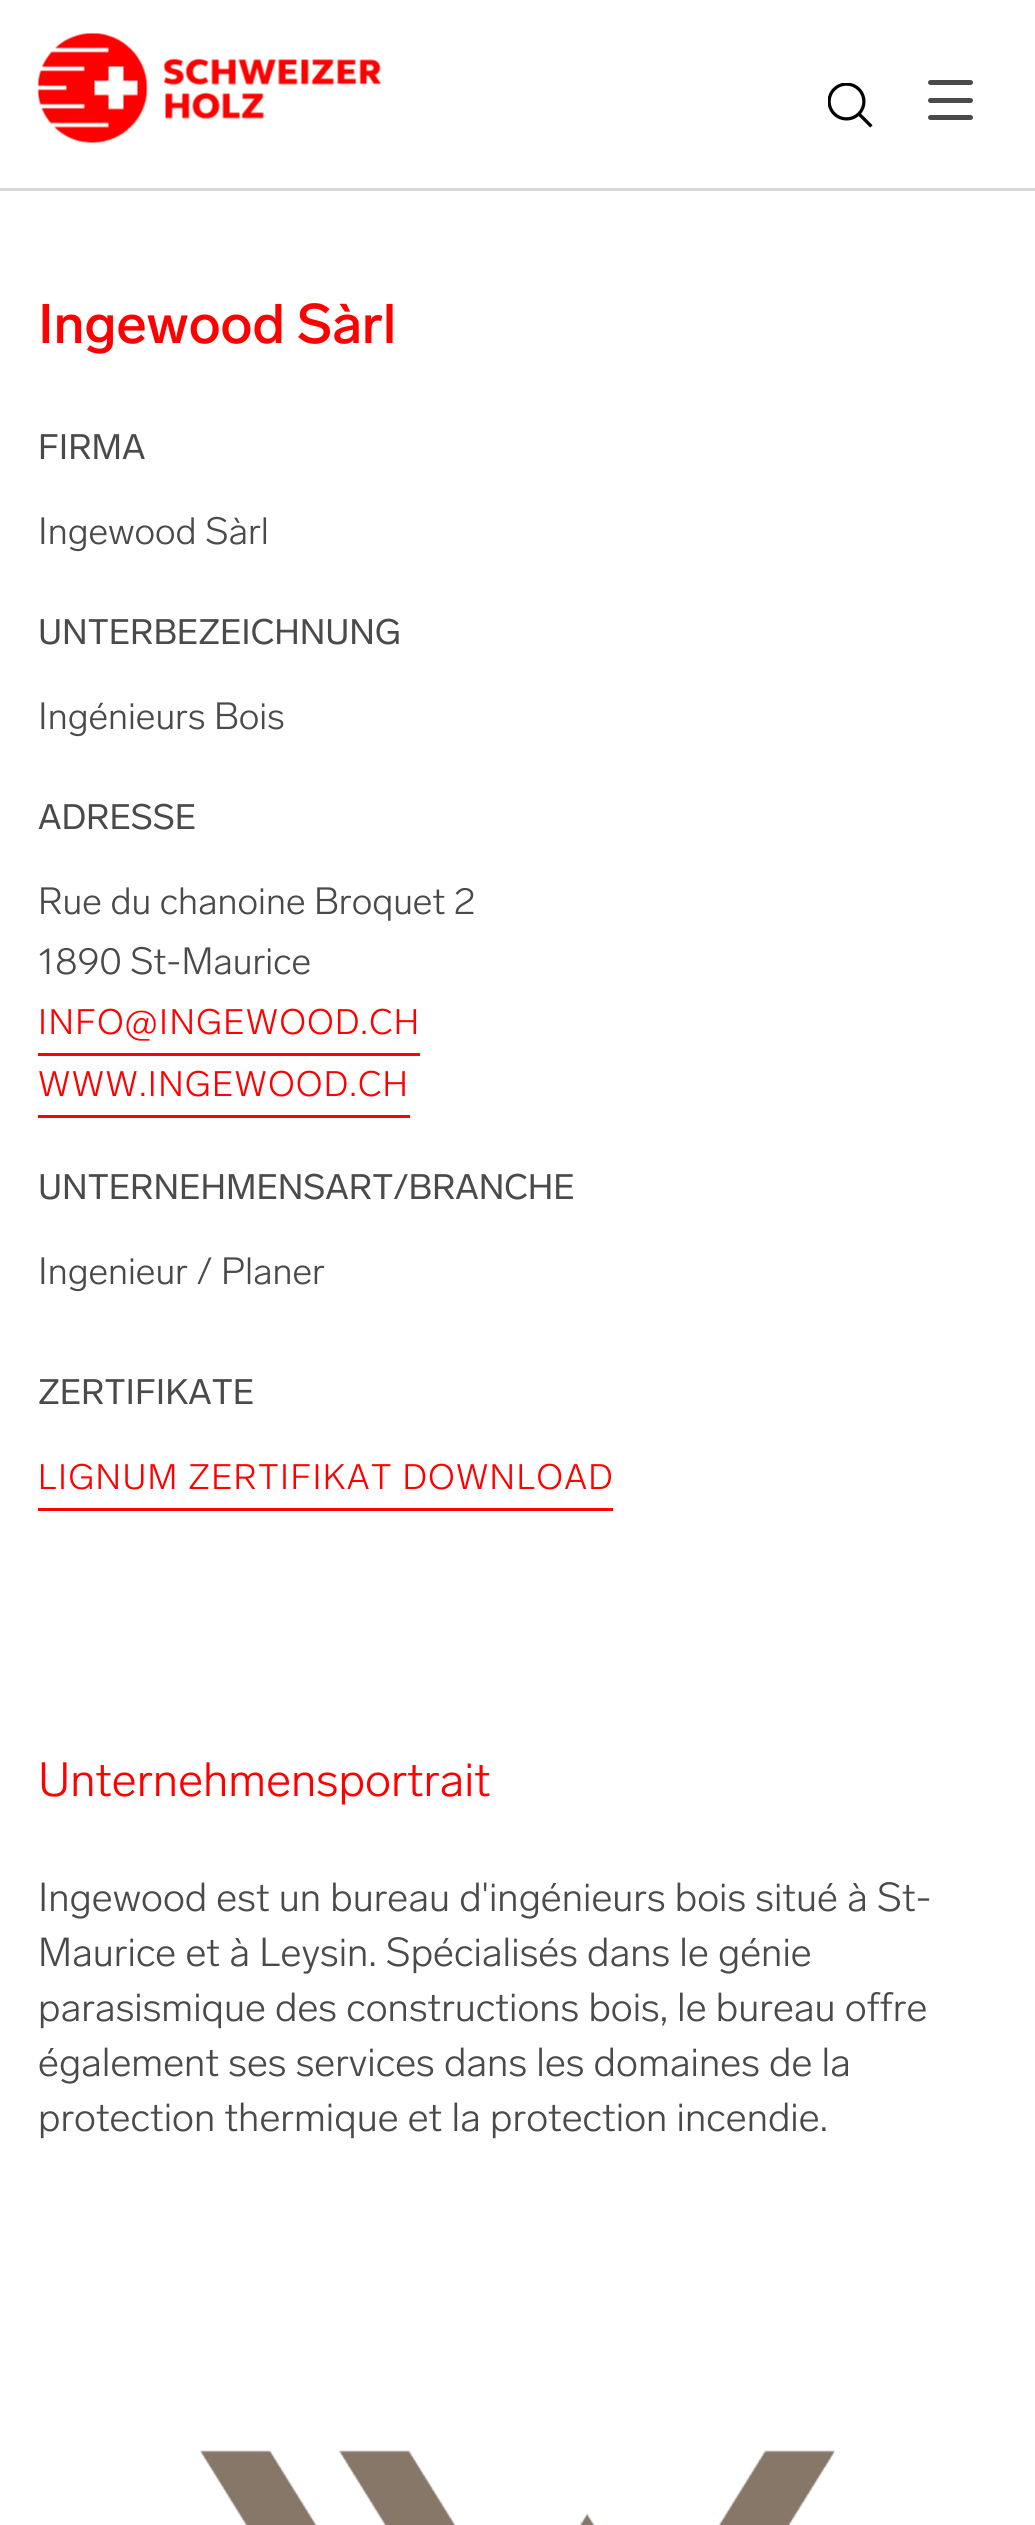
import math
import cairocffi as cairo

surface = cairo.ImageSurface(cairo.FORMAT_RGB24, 1035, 2525)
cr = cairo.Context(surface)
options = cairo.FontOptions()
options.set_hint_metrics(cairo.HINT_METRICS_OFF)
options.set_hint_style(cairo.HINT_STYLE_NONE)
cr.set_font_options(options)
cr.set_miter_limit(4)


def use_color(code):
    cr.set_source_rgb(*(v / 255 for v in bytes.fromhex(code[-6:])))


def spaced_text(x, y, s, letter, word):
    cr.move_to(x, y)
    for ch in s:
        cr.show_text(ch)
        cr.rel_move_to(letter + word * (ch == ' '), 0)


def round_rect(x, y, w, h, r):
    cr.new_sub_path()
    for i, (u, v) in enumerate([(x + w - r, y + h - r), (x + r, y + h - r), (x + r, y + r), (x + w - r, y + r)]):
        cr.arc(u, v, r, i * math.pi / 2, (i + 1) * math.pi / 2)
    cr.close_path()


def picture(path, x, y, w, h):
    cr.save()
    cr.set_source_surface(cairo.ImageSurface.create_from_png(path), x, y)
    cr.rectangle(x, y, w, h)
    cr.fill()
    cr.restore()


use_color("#ffffff")
cr.paint()
use_color("#d8d8d8")
cr.rectangle(0, 188, 1035, 3)
cr.fill()
picture("img1.png", 37, 32, 344, 111)
picture("img2.png", 828, 83, 45, 45)
use_color("#4a4a4a")
round_rect(928, 80, 45, 5, 2.5)
cr.fill()
round_rect(928, 98, 45, 5, 2.5)
cr.fill()
round_rect(928, 115, 45, 5, 2.5)
cr.fill()
cr.select_font_face("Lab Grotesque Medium")
cr.set_font_size(55)
use_color("#ff0000")
cr.move_to(38, 343)
cr.show_text("Ingewood Sàrl")
cr.select_font_face("Lab Grotesque")
cr.set_font_size(35)
use_color("#4a4a4a")
cr.move_to(38, 459)
cr.show_text("FIRMA")
cr.select_font_face("Lab Grotesque Light")
cr.set_font_size(37.5)
cr.move_to(38, 544)
cr.show_text("Ingewood Sàrl")
cr.select_font_face("Lab Grotesque")
cr.set_font_size(35)
cr.move_to(38, 644)
cr.show_text("UNTERBEZEICHNUNG")
cr.select_font_face("Lab Grotesque Light")
cr.set_font_size(37.5)
cr.move_to(38, 729)
cr.show_text("Ingénieurs Bois")
cr.select_font_face("Lab Grotesque")
cr.set_font_size(35)
cr.move_to(38, 829)
cr.show_text("ADRESSE")
cr.select_font_face("Lab Grotesque Light")
cr.set_font_size(37.5)
cr.move_to(38, 914)
cr.show_text("Rue du chanoine Broquet 2")
cr.move_to(38, 974)
cr.show_text("1890 St-Maurice")
cr.set_font_size(35)
use_color("#ff0000")
spaced_text(38, 1034, "INFO@INGEWOOD.CH", 1.4, 0)
cr.rectangle(38, 1053, 382, 3)
cr.fill()
spaced_text(38, 1096, "WWW.INGEWOOD.CH", 1.4, 0)
cr.rectangle(38, 1115, 372, 3)
cr.fill()
cr.select_font_face("Lab Grotesque")
use_color("#4a4a4a")
cr.move_to(38, 1199)
cr.show_text("UNTERNEHMENSART/BRANCHE")
cr.select_font_face("Lab Grotesque Light")
cr.set_font_size(37.5)
cr.move_to(38, 1284)
cr.show_text("Ingenieur / Planer")
cr.select_font_face("Lab Grotesque")
cr.set_font_size(35)
cr.move_to(38, 1404)
cr.show_text("ZERTIFIKATE")
cr.select_font_face("Lab Grotesque Light")
use_color("#ff0000")
spaced_text(38, 1489, "LIGNUM ZERTIFIKAT DOWNLOAD", 1.4, 0)
cr.rectangle(38, 1508, 575, 3)
cr.fill()
cr.set_font_size(47.5)
cr.move_to(38, 1796)
cr.show_text("Unternehmensportrait")
cr.set_font_size(40)
use_color("#4a4a4a")
cr.move_to(38, 1911)
cr.show_text("Ingewood est un bureau d'ingénieurs bois situé à St-")
cr.move_to(38, 1966)
cr.show_text("Maurice et à Leysin. Spécialisés dans le génie")
cr.move_to(38, 2021)
cr.show_text("parasismique des constructions bois, le bureau offre")
cr.move_to(38, 2076)
cr.show_text("également ses services dans les domaines de la")
cr.move_to(38, 2131)
cr.show_text("protection thermique et la protection incendie.")
picture("img3.png", 200, 2450, 635, 75)
surface.write_to_png("result.png")
